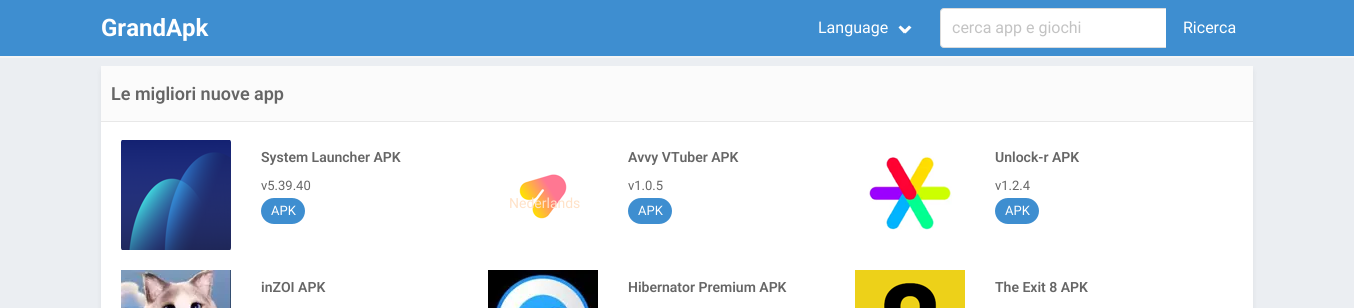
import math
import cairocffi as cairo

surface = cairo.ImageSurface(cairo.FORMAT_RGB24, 1354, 308)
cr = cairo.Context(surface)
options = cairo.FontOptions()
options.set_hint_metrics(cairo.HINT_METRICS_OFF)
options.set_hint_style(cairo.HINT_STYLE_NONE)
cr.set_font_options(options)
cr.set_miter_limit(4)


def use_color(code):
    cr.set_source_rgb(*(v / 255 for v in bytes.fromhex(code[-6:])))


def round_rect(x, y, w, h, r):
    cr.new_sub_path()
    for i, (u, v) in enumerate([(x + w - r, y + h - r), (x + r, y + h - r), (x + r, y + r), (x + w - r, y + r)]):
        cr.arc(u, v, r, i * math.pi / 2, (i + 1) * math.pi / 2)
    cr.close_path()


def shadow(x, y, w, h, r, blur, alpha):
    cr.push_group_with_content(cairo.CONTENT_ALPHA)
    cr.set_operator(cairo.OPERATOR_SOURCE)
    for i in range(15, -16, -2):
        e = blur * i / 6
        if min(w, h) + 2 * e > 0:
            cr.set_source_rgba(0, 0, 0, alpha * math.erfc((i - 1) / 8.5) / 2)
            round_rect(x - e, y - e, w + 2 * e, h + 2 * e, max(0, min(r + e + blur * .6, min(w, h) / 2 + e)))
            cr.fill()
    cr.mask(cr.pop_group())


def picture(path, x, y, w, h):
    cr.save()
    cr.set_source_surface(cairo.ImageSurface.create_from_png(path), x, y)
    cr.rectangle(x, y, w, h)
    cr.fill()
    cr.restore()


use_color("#ebeef2")
cr.paint()
use_color("#f5f5f5")
cr.rectangle(0, 56, 1354, 2)
cr.fill()
use_color("#3e8ed0")
cr.rectangle(0, 0, 1354, 56)
cr.fill()
cr.select_font_face("Roboto", cairo.FONT_SLANT_NORMAL, cairo.FONT_WEIGHT_BOLD)
cr.set_font_size(24)
use_color("#ffffff")
cr.move_to(101, 36)
cr.show_text("GrandApk")
cr.select_font_face("Roboto")
cr.set_font_size(16)
cr.move_to(818, 33)
cr.show_text("Language")
cr.new_path()
cr.move_to(903.5, 31)
cr.line_to(909, 25.5)
cr.line_to(911.5, 27.5)
cr.line_to(905.5, 33.5)
cr.close_path()
cr.fill()
cr.new_path()
cr.move_to(898.5, 27.5)
cr.line_to(900.5, 25.5)
cr.line_to(906.5, 31)
cr.line_to(904, 33.5)
cr.close_path()
cr.fill()
use_color("#000000")
shadow(101, 70, 1152, 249, 2, 3, 0.06)
use_color("#ffffff")
cr.rectangle(101, 122, 1152, 186)
cr.fill()
picture("img2.png", 519, 174, 48, 45)
cr.set_font_size(14)
use_color("#ffe2c8")
cr.move_to(509, 208)
cr.show_text("Nederlands")
use_color("#ffffff")
cr.new_path()
cr.move_to(944, 8.5)
cr.line_to(1166.5, 8.5)
cr.line_to(1166.5, 47.5)
cr.line_to(944, 47.5)
cr.curve_to(942, 47.5, 940.5, 46, 940.5, 44)
cr.line_to(940.5, 12)
cr.curve_to(940.5, 10, 942, 8.5, 944, 8.5)
cr.close_path()
cr.fill_preserve()
use_color("#dbdbdb")
cr.set_line_width(1)
cr.stroke()
cr.set_font_size(16)
use_color("#c3c3c3")
cr.move_to(952, 33)
cr.show_text("cerca app e giochi")
use_color("#3e8ed0")
cr.new_path()
cr.move_to(1166, 8)
cr.line_to(1249, 8)
cr.curve_to(1251, 8, 1253, 10, 1253, 12)
cr.line_to(1253, 44)
cr.curve_to(1253, 46, 1251, 48, 1249, 48)
cr.line_to(1166, 48)
cr.close_path()
cr.fill()
use_color("#ffffff")
cr.move_to(1183, 33)
cr.show_text("Ricerca")
use_color("#fbfbfb")
cr.rectangle(101, 66, 1152, 55)
cr.fill()
use_color("#e8e8e8")
cr.rectangle(101, 121, 1152, 1)
cr.fill()
cr.select_font_face("Roboto SemiBold")
cr.set_font_size(18)
use_color("#666666")
cr.move_to(111, 100)
cr.show_text("Le migliori nuove app")
picture("img1.png", 121, 140, 110, 110)
cr.set_font_size(14)
cr.move_to(261, 162)
cr.show_text("System Launcher APK")
cr.select_font_face("Roboto")
cr.set_font_size(13)
cr.move_to(261, 190)
cr.show_text("v5.39.40")
use_color("#3e8ed0")
round_rect(261, 198, 44, 26, 13)
cr.fill()
use_color("#ffffff")
cr.move_to(271, 215)
cr.show_text("APK")
cr.select_font_face("Roboto SemiBold")
cr.set_font_size(14)
use_color("#666666")
cr.move_to(628, 162)
cr.show_text("Avvy VTuber APK")
cr.select_font_face("Roboto")
cr.set_font_size(13)
cr.move_to(628, 190)
cr.show_text("v1.0.5")
use_color("#3e8ed0")
round_rect(628, 198, 44, 26, 13)
cr.fill()
use_color("#ffffff")
cr.move_to(638, 215)
cr.show_text("APK")
picture("img3.png", 869, 154, 83, 76)
cr.select_font_face("Roboto SemiBold")
cr.set_font_size(14)
use_color("#666666")
cr.move_to(995, 162)
cr.show_text("Unlock-r APK")
cr.select_font_face("Roboto")
cr.set_font_size(13)
cr.move_to(995, 190)
cr.show_text("v1.2.4")
use_color("#3e8ed0")
round_rect(995, 198, 44, 26, 13)
cr.fill()
use_color("#ffffff")
cr.move_to(1005, 215)
cr.show_text("APK")
picture("img4.png", 121, 270, 110, 38)
cr.select_font_face("Roboto SemiBold")
cr.set_font_size(14)
use_color("#666666")
cr.move_to(261, 292)
cr.show_text("inZOI APK")
picture("img5.png", 488, 270, 110, 38)
cr.move_to(628, 292)
cr.show_text("Hibernator Premium APK")
picture("img6.png", 855, 270, 110, 38)
cr.move_to(995, 292)
cr.show_text("The Exit 8 APK")
surface.write_to_png("result.png")
